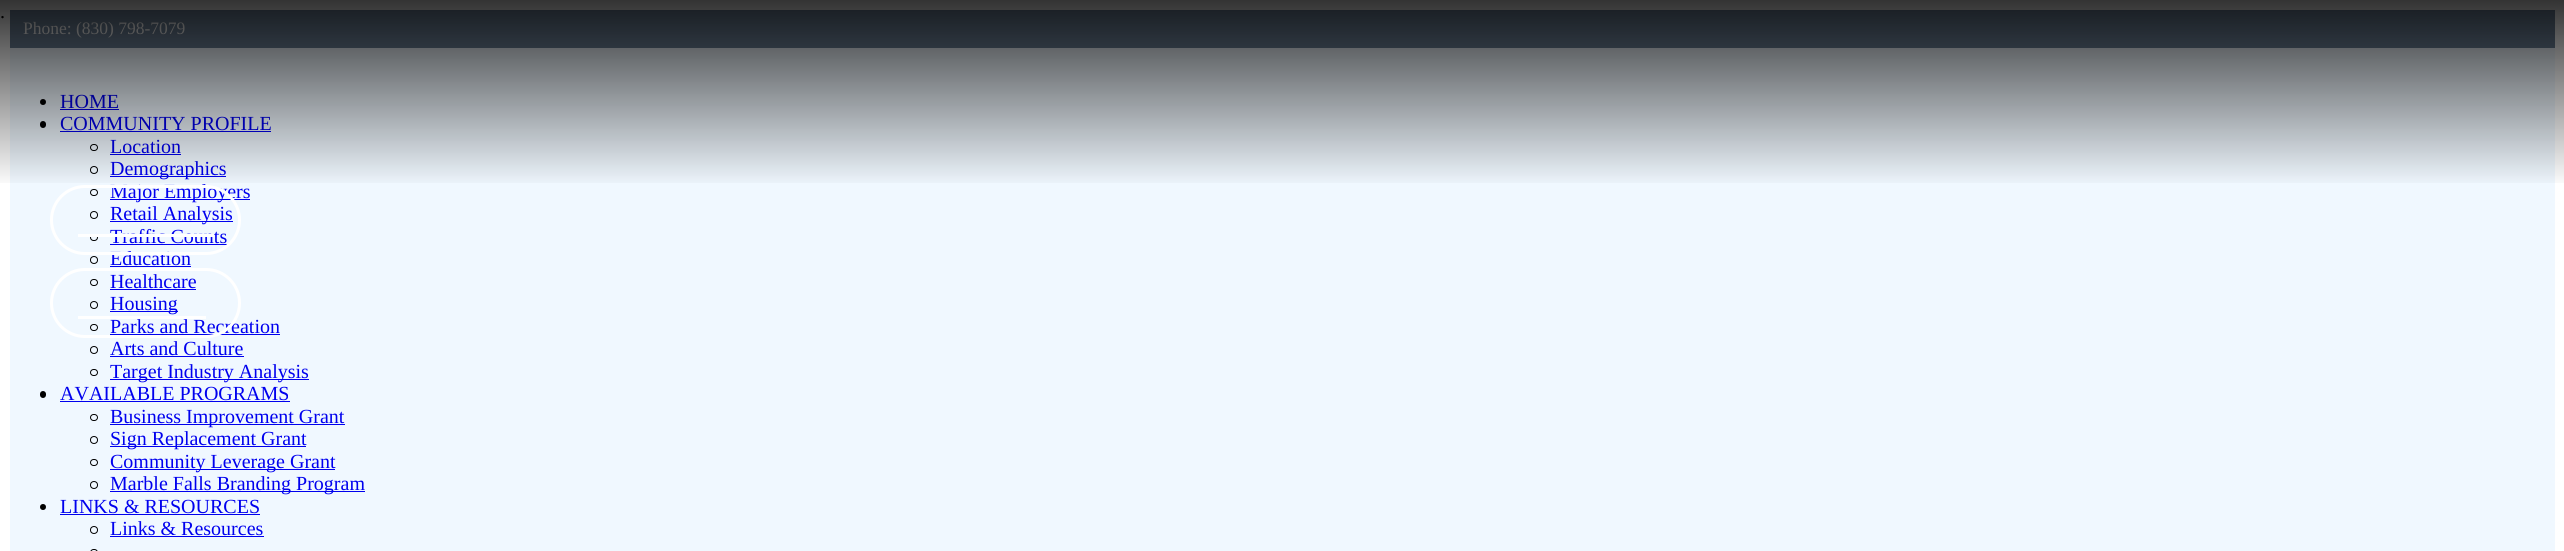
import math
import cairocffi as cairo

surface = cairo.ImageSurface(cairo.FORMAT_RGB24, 2564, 551)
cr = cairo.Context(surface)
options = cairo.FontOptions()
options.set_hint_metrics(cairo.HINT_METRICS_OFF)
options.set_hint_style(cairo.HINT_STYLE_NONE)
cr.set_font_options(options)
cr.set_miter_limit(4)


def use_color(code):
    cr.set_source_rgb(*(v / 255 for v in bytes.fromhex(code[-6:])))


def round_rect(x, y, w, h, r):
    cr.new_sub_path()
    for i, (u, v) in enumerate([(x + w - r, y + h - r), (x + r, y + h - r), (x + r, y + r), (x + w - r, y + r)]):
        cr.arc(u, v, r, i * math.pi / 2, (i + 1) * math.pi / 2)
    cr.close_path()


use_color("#ffffff")
cr.paint()
use_color("#70859c")
cr.rectangle(10, 10, 2545, 38)
cr.fill()
cr.select_font_face("Liberation Serif")
cr.set_font_size(17.5)
use_color("#ffffff")
cr.move_to(23, 34)
cr.show_text("Phone: (830) 798-7079")
use_color("#f0f8ff")
cr.rectangle(10, 48, 2545, 503)
cr.fill()
use_color("#000000")
cr.arc(43, 102, 3, 0, 2 * math.pi)
cr.fill()
cr.set_font_size(20)
use_color("#0000ee")
cr.move_to(60, 108)
cr.show_text("HOME")
cr.rectangle(60, 109, 59, 1)
cr.fill()
use_color("#000000")
round_rect(40, 121, 6, 7, 3)
cr.fill()
use_color("#0000ee")
cr.move_to(60, 130)
cr.show_text("COMMUNITY PROFILE")
cr.rectangle(60, 131, 211, 1)
cr.fill()
round_rect(90.5, 144.5, 7, 6, 3)
use_color("#000000")
cr.set_line_width(1)
cr.stroke()
use_color("#0000ee")
cr.move_to(110, 153)
cr.show_text("Location")
cr.rectangle(110, 154, 71, 1)
cr.fill()
cr.arc(94, 170, 3.5, 0, 2 * math.pi)
use_color("#000000")
cr.stroke()
use_color("#0000ee")
cr.rectangle(110, 176, 116, 1)
cr.fill()
cr.move_to(110, 175)
cr.show_text("Demographics")
gradient = cairo.LinearGradient(1283, 0, 1283, 188)
gradient.add_color_stop_rgba(0, 0, 0, 0, 0.8)
gradient.add_color_stop_rgba(1, 0, 0, 0, 0)
cr.set_source(gradient)
cr.rectangle(0, 0, 2564, 183)
cr.fill()
use_color("#000000")
cr.move_to(0, 18)
cr.show_text(".")
round_rect(90.5, 189.5, 7, 6, 3)
cr.stroke()
use_color("#0000ee")
cr.rectangle(110, 199, 140, 1)
cr.fill()
cr.move_to(110, 198)
cr.show_text("Major Employers")
cr.new_path()
cr.arc(94, 215, 3.5, 0, 2 * math.pi)
use_color("#000000")
cr.stroke()
use_color("#0000ee")
cr.rectangle(110, 221, 123, 1)
cr.fill()
round_rect(90.5, 234.5, 7, 6, 3)
use_color("#000000")
cr.stroke()
use_color("#0000ee")
cr.rectangle(110, 244, 118, 1)
cr.fill()
cr.move_to(110, 265)
cr.show_text("Education")
round_rect(51.5, 186.5, 188, 67, 33.5)
use_color("#ffffff")
cr.set_line_width(3)
cr.stroke()
use_color("#0000ee")
cr.move_to(110, 243)
cr.show_text("Traffic Counts")
use_color("#ffffff")
cr.rectangle(78, 234, 136, 3)
cr.fill()
round_rect(90.5, 279.5, 7, 6, 3)
use_color("#000000")
cr.set_line_width(1)
cr.stroke()
use_color("#0000ee")
cr.rectangle(110, 289, 86, 1)
cr.fill()
cr.arc(94, 305, 3.5, 0, 2 * math.pi)
use_color("#000000")
cr.stroke()
use_color("#0000ee")
cr.rectangle(110, 311, 68, 1)
cr.fill()
round_rect(90.5, 324.5, 7, 6, 3)
use_color("#000000")
cr.stroke()
use_color("#0000ee")
cr.move_to(110, 333)
cr.show_text("Parks and Recreation")
cr.rectangle(110, 334, 170, 1)
cr.fill()
round_rect(51.5, 269.5, 188, 67, 33.5)
use_color("#ffffff")
cr.set_line_width(3)
cr.stroke()
cr.rectangle(78, 316, 128, 3)
cr.fill()
use_color("#0000ee")
cr.move_to(110, 220)
cr.show_text("Retail Analysis")
cr.new_path()
cr.arc(94, 260, 3.5, 0, 2 * math.pi)
use_color("#000000")
cr.set_line_width(1)
cr.stroke()
use_color("#0000ee")
cr.rectangle(110, 266, 81, 1)
cr.fill()
cr.move_to(110, 288)
cr.show_text("Healthcare")
cr.move_to(110, 310)
cr.show_text("Housing")
cr.new_path()
cr.arc(94, 350, 3.5, 0, 2 * math.pi)
use_color("#000000")
cr.stroke()
use_color("#0000ee")
cr.move_to(110, 355)
cr.show_text("Arts and Culture")
cr.rectangle(110, 356, 134, 1)
cr.fill()
round_rect(90.5, 369.5, 7, 6, 3)
use_color("#000000")
cr.stroke()
use_color("#0000ee")
cr.rectangle(110, 379, 199, 1)
cr.fill()
cr.move_to(110, 378)
cr.show_text("Target Industry Analysis")
use_color("#000000")
round_rect(40, 391, 6, 7, 3)
cr.fill()
use_color("#0000ee")
cr.move_to(60, 400)
cr.show_text("AVAILABLE PROGRAMS")
cr.rectangle(60, 401, 230, 1)
cr.fill()
round_rect(90.5, 414.5, 7, 6, 3)
use_color("#000000")
cr.stroke()
use_color("#0000ee")
cr.rectangle(110, 424, 235, 1)
cr.fill()
cr.move_to(110, 423)
cr.show_text("Business Improvement Grant")
cr.new_path()
cr.arc(94, 440, 3.5, 0, 2 * math.pi)
use_color("#000000")
cr.stroke()
use_color("#0000ee")
cr.rectangle(110, 446, 196, 1)
cr.fill()
cr.move_to(110, 445)
cr.show_text("Sign Replacement Grant")
round_rect(90.5, 459.5, 7, 6, 3)
use_color("#000000")
cr.stroke()
use_color("#0000ee")
cr.rectangle(110, 469, 225, 1)
cr.fill()
cr.move_to(110, 468)
cr.show_text("Community Leverage Grant")
cr.new_path()
cr.arc(94, 485, 3.5, 0, 2 * math.pi)
use_color("#000000")
cr.stroke()
use_color("#0000ee")
cr.rectangle(110, 491, 255, 1)
cr.fill()
cr.move_to(110, 490)
cr.show_text("Marble Falls Branding Program")
use_color("#000000")
cr.new_path()
cr.arc(43, 507, 3, 0, 2 * math.pi)
cr.fill()
use_color("#0000ee")
cr.move_to(60, 513)
cr.show_text("LINKS & RESOURCES")
cr.rectangle(60, 514, 200, 1)
cr.fill()
cr.arc(94, 530, 3.5, 0, 2 * math.pi)
use_color("#000000")
cr.stroke()
use_color("#0000ee")
cr.move_to(110, 535)
cr.show_text("Links & Resources")
cr.rectangle(110, 536, 154, 1)
cr.fill()
round_rect(90.5, 549.5, 7, 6, 3)
use_color("#000000")
cr.stroke()
surface.write_to_png("result.png")
